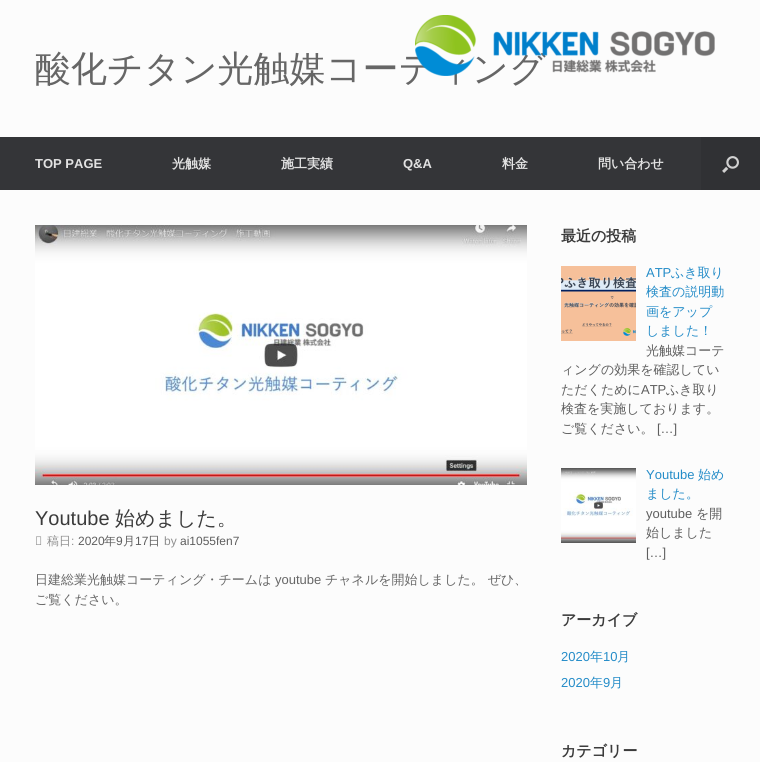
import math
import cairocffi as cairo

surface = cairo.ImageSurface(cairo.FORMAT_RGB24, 760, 762)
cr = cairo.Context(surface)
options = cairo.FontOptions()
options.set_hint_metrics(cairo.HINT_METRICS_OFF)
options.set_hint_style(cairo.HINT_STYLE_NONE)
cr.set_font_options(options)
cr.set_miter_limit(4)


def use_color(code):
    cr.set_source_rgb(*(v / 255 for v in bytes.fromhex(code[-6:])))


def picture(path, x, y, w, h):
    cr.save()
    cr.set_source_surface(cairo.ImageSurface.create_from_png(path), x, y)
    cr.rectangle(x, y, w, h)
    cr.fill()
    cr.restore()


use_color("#fcfcfc")
cr.paint()
cr.select_font_face("WenQuanYi Zen Hei Medium")
cr.set_font_size(36)
use_color("#666666")
cr.move_to(35, 81)
cr.show_text("酸化チタン光触媒コーティング")
picture("img1.png", 415, 15, 300, 61)
use_color("#343538")
cr.rectangle(0, 137, 701, 53)
cr.fill()
cr.select_font_face("Liberation Sans", cairo.FONT_SLANT_NORMAL, cairo.FONT_WEIGHT_BOLD)
cr.set_font_size(13)
use_color("#e2e2e2")
cr.move_to(35, 168)
cr.show_text("TOP PAGE")
cr.select_font_face("WenQuanYi Zen Hei", cairo.FONT_SLANT_NORMAL, cairo.FONT_WEIGHT_BOLD)
cr.move_to(172, 168)
cr.show_text("光触媒")
cr.move_to(281, 168)
cr.show_text("施工実績")
cr.select_font_face("Liberation Sans", cairo.FONT_SLANT_NORMAL, cairo.FONT_WEIGHT_BOLD)
cr.move_to(403, 168)
cr.show_text("Q&A")
cr.select_font_face("WenQuanYi Zen Hei", cairo.FONT_SLANT_NORMAL, cairo.FONT_WEIGHT_BOLD)
cr.move_to(502, 168)
cr.show_text("料金")
cr.move_to(598, 168)
cr.show_text("問い合わせ")
use_color("#303134")
cr.rectangle(701, 137, 59, 53)
cr.fill()
picture("img2.png", 722, 156, 17, 17)
picture("img3.png", 35, 225, 492, 260)
cr.select_font_face("Liberation Sans")
cr.set_font_size(20)
use_color("#3b3b3b")
cr.move_to(35, 525)
cr.show_text("Youtube")
cr.select_font_face("WenQuanYi Zen Hei Medium")
cr.move_to(115, 525)
cr.show_text("始めました。")
cr.select_font_face("Noto Sans")
cr.set_font_size(12)
use_color("#8f8f8f")
cr.move_to(35, 545)
cr.show_text("投")
cr.select_font_face("WenQuanYi Zen Hei Medium")
cr.move_to(47, 545)
cr.show_text("稿日")
cr.select_font_face("Liberation Sans")
cr.move_to(71, 545)
cr.show_text(":")
use_color("#5e5e5e")
cr.move_to(78, 545)
cr.show_text("2020")
cr.select_font_face("WenQuanYi Zen Hei Medium")
cr.move_to(104, 545)
cr.show_text("年")
cr.select_font_face("Liberation Sans")
cr.move_to(116, 545)
cr.show_text("9")
cr.select_font_face("WenQuanYi Zen Hei Medium")
cr.move_to(123, 545)
cr.show_text("月")
cr.select_font_face("Liberation Sans")
cr.move_to(135, 545)
cr.show_text("17")
cr.select_font_face("WenQuanYi Zen Hei Medium")
cr.move_to(148, 545)
cr.show_text("日")
cr.select_font_face("Liberation Sans")
use_color("#8f8f8f")
cr.move_to(164, 545)
cr.show_text("by")
use_color("#5e5e5e")
cr.move_to(180, 545)
cr.show_text("ai1055fen7")
cr.select_font_face("WenQuanYi Zen Hei Medium")
cr.set_font_size(13)
use_color("#666666")
cr.move_to(35, 584)
cr.show_text("日建総業光触媒コーティング・チームは")
cr.select_font_face("Liberation Sans")
cr.move_to(275, 584)
cr.show_text("youtube")
cr.select_font_face("WenQuanYi Zen Hei Medium")
cr.move_to(325, 584)
cr.show_text("チャネルを開始しました。 ぜひ、")
cr.move_to(35, 604)
cr.show_text("ご覧ください。")
cr.select_font_face("WenQuanYi Zen Hei", cairo.FONT_SLANT_NORMAL, cairo.FONT_WEIGHT_BOLD)
cr.set_font_size(15)
use_color("#3b3b3b")
cr.move_to(561, 241)
cr.show_text("最近の投稿")
picture("img4.png", 561, 266, 75, 75)
cr.select_font_face("Liberation Sans")
cr.set_font_size(13)
use_color("#248cc8")
cr.move_to(646, 277)
cr.show_text("ATP")
cr.select_font_face("WenQuanYi Zen Hei Medium")
cr.move_to(671, 277)
cr.show_text("ふき取り")
cr.move_to(646, 296)
cr.show_text("検査の説明動")
cr.move_to(646, 316)
cr.show_text("画をアップ")
cr.move_to(646, 335)
cr.show_text("しました！")
use_color("#5e5e5e")
cr.move_to(646, 355)
cr.show_text("光触媒コーテ")
cr.move_to(561, 374)
cr.show_text("ィングの効果を確認してい")
cr.move_to(561, 394)
cr.show_text("ただくために")
cr.select_font_face("Liberation Sans")
cr.move_to(641, 394)
cr.show_text("ATP")
cr.select_font_face("WenQuanYi Zen Hei Medium")
cr.move_to(666, 394)
cr.show_text("ふき取り")
cr.move_to(561, 413)
cr.show_text("検査を実施しております。")
cr.move_to(561, 433)
cr.show_text("ご覧ください。")
cr.select_font_face("Liberation Sans")
cr.move_to(657, 433)
cr.show_text("[…]")
picture("img5.png", 561, 468, 75, 75)
use_color("#248cc8")
cr.move_to(646, 479)
cr.show_text("Youtube")
cr.select_font_face("WenQuanYi Zen Hei Medium")
cr.move_to(698, 479)
cr.show_text("始め")
cr.move_to(646, 498)
cr.show_text("ました。")
cr.select_font_face("Liberation Sans")
use_color("#5e5e5e")
cr.move_to(646, 518)
cr.show_text("youtube")
cr.select_font_face("WenQuanYi Zen Hei Medium")
cr.move_to(696, 518)
cr.show_text("を開")
cr.move_to(646, 537)
cr.show_text("始しました")
cr.select_font_face("Liberation Sans")
cr.move_to(646, 557)
cr.show_text("[…]")
cr.select_font_face("WenQuanYi Zen Hei", cairo.FONT_SLANT_NORMAL, cairo.FONT_WEIGHT_BOLD)
cr.set_font_size(15)
use_color("#3b3b3b")
cr.move_to(561, 625)
cr.show_text("アーカイブ")
cr.select_font_face("Liberation Sans")
cr.set_font_size(13)
use_color("#248cc8")
cr.move_to(561, 661)
cr.show_text("2020")
cr.select_font_face("WenQuanYi Zen Hei Medium")
cr.move_to(590, 661)
cr.show_text("年")
cr.select_font_face("Liberation Sans")
cr.move_to(603, 661)
cr.show_text("10")
cr.select_font_face("WenQuanYi Zen Hei Medium")
cr.move_to(617, 661)
cr.show_text("月")
cr.select_font_face("Liberation Sans")
cr.move_to(561, 687)
cr.show_text("2020")
cr.select_font_face("WenQuanYi Zen Hei Medium")
cr.move_to(590, 687)
cr.show_text("年")
cr.select_font_face("Liberation Sans")
cr.move_to(603, 687)
cr.show_text("9")
cr.select_font_face("WenQuanYi Zen Hei Medium")
cr.move_to(610, 687)
cr.show_text("月")
cr.select_font_face("WenQuanYi Zen Hei", cairo.FONT_SLANT_NORMAL, cairo.FONT_WEIGHT_BOLD)
cr.set_font_size(15)
use_color("#3b3b3b")
cr.move_to(561, 756)
cr.show_text("カテゴリー")
surface.write_to_png("result.png")
